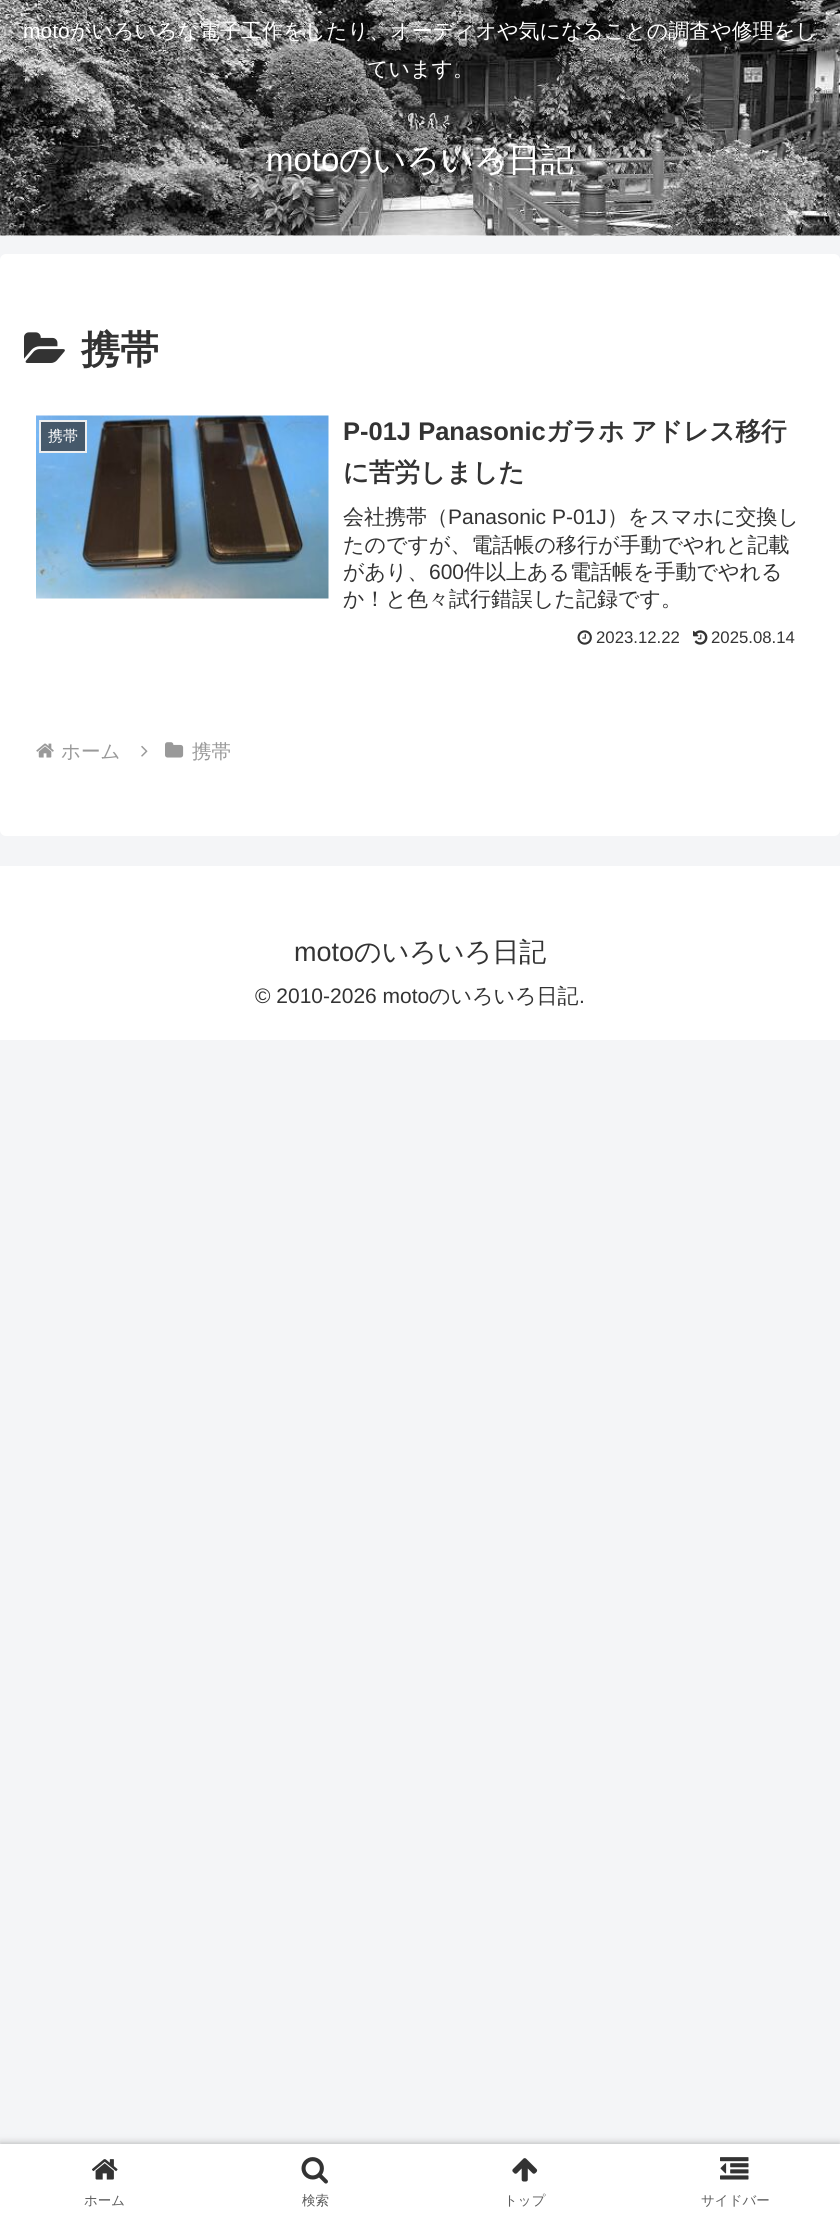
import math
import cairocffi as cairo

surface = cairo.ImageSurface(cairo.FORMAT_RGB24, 840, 2218)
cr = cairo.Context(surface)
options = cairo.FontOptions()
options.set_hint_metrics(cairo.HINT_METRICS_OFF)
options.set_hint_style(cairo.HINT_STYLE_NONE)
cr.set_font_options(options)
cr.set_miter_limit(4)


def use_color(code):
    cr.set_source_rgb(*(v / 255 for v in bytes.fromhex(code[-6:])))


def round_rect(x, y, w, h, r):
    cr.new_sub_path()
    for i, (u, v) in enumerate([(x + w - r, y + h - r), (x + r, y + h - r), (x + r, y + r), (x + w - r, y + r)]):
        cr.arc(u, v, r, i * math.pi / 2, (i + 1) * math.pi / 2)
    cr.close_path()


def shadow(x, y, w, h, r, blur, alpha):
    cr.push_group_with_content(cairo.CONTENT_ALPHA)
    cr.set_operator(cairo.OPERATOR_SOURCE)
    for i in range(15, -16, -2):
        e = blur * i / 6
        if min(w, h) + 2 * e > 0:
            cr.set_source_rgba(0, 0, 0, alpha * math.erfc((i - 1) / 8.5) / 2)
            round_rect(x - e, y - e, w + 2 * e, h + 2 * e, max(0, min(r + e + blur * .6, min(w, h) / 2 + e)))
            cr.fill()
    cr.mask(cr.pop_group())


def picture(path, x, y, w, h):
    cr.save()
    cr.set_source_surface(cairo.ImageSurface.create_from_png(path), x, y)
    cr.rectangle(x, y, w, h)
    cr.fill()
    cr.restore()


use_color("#f4f5f7")
cr.paint()
use_color("#ffffff")
cr.rectangle(0, 235, 840, 1)
cr.fill()
picture("img1.png", 0, 0, 840, 236)
cr.select_font_face("Liberation Sans")
cr.set_font_size(21)
cr.move_to(23, 38)
cr.show_text("moto")
cr.select_font_face("WenQuanYi Zen Hei Medium")
cr.move_to(70, 38)
cr.show_text("がいろいろな電子工作をしたり、オーディオや気になることの調査や修理をし")
cr.move_to(367, 76)
cr.show_text("ています。")
cr.select_font_face("Liberation Sans")
cr.set_font_size(33)
cr.move_to(266, 171)
cr.show_text("moto")
cr.select_font_face("WenQuanYi Zen Hei Medium")
cr.move_to(339, 171)
cr.show_text("のいろいろ日記")
round_rect(0, 254, 840, 582, 6)
cr.fill()
picture("img2.png", 24, 332, 41, 31)
cr.select_font_face("WenQuanYi Zen Hei", cairo.FONT_SLANT_NORMAL, cairo.FONT_WEIGHT_BOLD)
cr.set_font_size(39)
use_color("#333333")
cr.move_to(81, 363)
cr.show_text("携帯")
picture("img3.png", 36, 415, 293, 184)
cr.set_source_rgba(0.2, 0.2, 0.2, 0.7)
cr.rectangle(40, 421, 46, 31)
cr.fill_preserve()
use_color("#eeeeee")
cr.stroke()
cr.select_font_face("WenQuanYi Zen Hei Medium")
cr.set_font_size(15)
use_color("#ffffff")
cr.move_to(48, 441)
cr.show_text("携帯")
cr.select_font_face("Liberation Sans", cairo.FONT_SLANT_NORMAL, cairo.FONT_WEIGHT_BOLD)
cr.set_font_size(25.5)
use_color("#333333")
cr.move_to(343, 440)
cr.show_text("P-01J Panasonic")
cr.select_font_face("WenQuanYi Zen Hei", cairo.FONT_SLANT_NORMAL, cairo.FONT_WEIGHT_BOLD)
cr.move_to(546, 440)
cr.show_text("ガラホ")
cr.move_to(631, 440)
cr.show_text("アドレス移行")
cr.move_to(343, 481)
cr.show_text("に苦労しました")
cr.select_font_face("WenQuanYi Zen Hei Medium")
cr.set_font_size(21)
cr.move_to(343, 524)
cr.show_text("会社携帯（")
cr.select_font_face("Liberation Sans")
cr.move_to(448, 524)
cr.show_text("Panasonic P-01J")
cr.select_font_face("WenQuanYi Zen Hei Medium")
cr.move_to(607, 524)
cr.show_text("）をスマホに交換し")
cr.move_to(343, 552)
cr.show_text("たのですが、電話帳の移行が手動でやれと記載")
cr.move_to(343, 579)
cr.show_text("があり、")
cr.select_font_face("Liberation Sans")
cr.move_to(429, 579)
cr.show_text("600")
cr.select_font_face("WenQuanYi Zen Hei Medium")
cr.move_to(464, 579)
cr.show_text("件以上ある電話帳を手動でやれる")
cr.move_to(343, 606)
cr.show_text("か！と色々試行錯誤した記録です。")
picture("img4.png", 577, 630, 15, 15)
cr.select_font_face("Liberation Sans")
cr.set_font_size(16.75)
cr.move_to(596, 643)
cr.show_text("2023.12.22")
picture("img5.png", 693, 630, 15, 15)
cr.move_to(711, 643)
cr.show_text("2025.08.14")
picture("img6.png", 36, 743, 18, 15)
cr.select_font_face("WenQuanYi Zen Hei Medium")
cr.set_font_size(19.5)
use_color("#999999")
cr.move_to(61, 758)
cr.show_text("ホーム")
picture("img7.png", 141, 745, 7, 12)
picture("img8.png", 165, 742, 19, 16)
cr.move_to(192, 758)
cr.show_text("携帯")
use_color("#ffffff")
cr.rectangle(0, 866, 840, 174)
cr.fill()
cr.select_font_face("Liberation Sans")
cr.set_font_size(27)
use_color("#333333")
cr.move_to(294, 961)
cr.show_text("moto")
cr.select_font_face("WenQuanYi Zen Hei Medium")
cr.move_to(354, 961)
cr.show_text("のいろいろ日記")
cr.select_font_face("Liberation Sans")
cr.set_font_size(21)
cr.move_to(255, 1003)
cr.show_text("© 2010-2026 moto")
cr.select_font_face("WenQuanYi Zen Hei Medium")
cr.move_to(429, 1003)
cr.show_text("のいろいろ日記")
cr.select_font_face("Liberation Sans")
cr.move_to(579, 1003)
cr.show_text(".")
use_color("#a9a9a9")
shadow(0, 2144, 840, 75, 0, 4, 1)
use_color("#ffffff")
cr.rectangle(0, 2144, 840, 74)
cr.fill()
picture("img9.png", 92, 2159, 26, 21)
cr.select_font_face("WenQuanYi Zen Hei Medium")
cr.set_font_size(13.5)
use_color("#5c5c5c")
cr.move_to(84, 2205)
cr.show_text("ホーム")
picture("img10.png", 301, 2157, 27, 27)
cr.move_to(302, 2205)
cr.show_text("検索")
picture("img11.png", 512, 2158, 26, 24)
cr.move_to(504, 2205)
cr.show_text("トップ")
picture("img12.png", 720, 2157, 29, 23)
cr.move_to(701, 2205)
cr.show_text("サイドバー")
surface.write_to_png("result.png")
